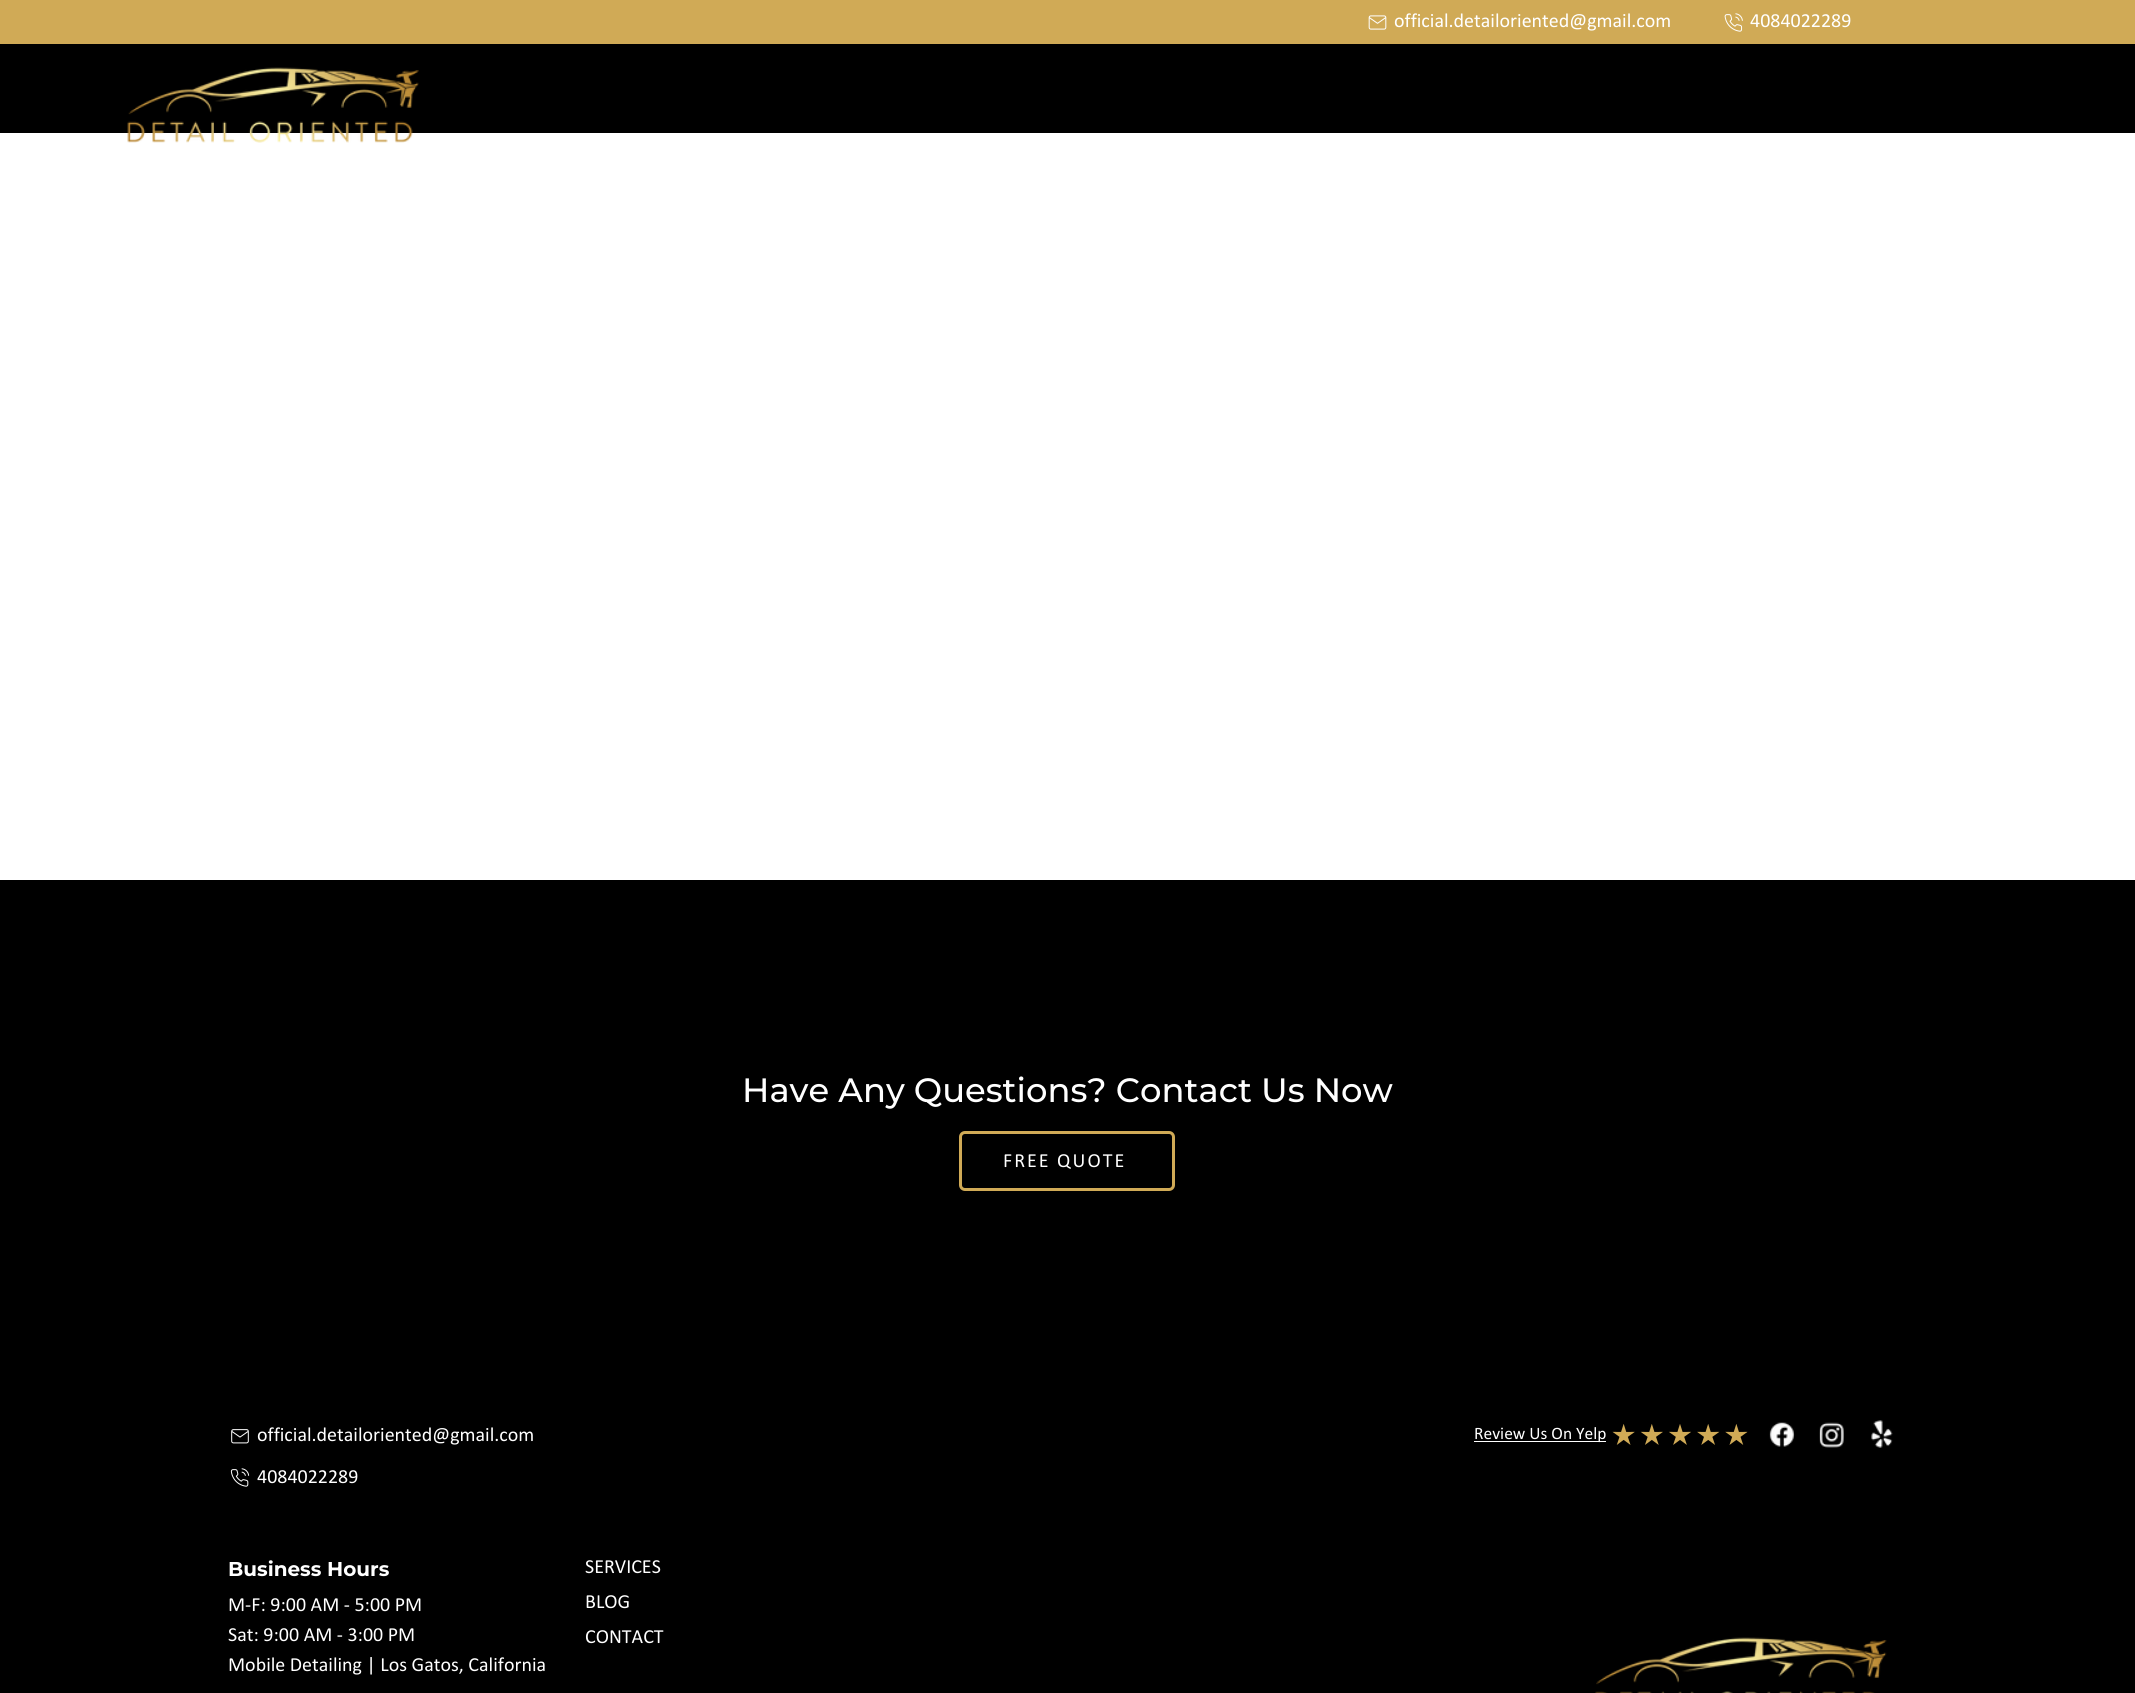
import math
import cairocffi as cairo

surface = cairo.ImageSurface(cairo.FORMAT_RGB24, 2135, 1693)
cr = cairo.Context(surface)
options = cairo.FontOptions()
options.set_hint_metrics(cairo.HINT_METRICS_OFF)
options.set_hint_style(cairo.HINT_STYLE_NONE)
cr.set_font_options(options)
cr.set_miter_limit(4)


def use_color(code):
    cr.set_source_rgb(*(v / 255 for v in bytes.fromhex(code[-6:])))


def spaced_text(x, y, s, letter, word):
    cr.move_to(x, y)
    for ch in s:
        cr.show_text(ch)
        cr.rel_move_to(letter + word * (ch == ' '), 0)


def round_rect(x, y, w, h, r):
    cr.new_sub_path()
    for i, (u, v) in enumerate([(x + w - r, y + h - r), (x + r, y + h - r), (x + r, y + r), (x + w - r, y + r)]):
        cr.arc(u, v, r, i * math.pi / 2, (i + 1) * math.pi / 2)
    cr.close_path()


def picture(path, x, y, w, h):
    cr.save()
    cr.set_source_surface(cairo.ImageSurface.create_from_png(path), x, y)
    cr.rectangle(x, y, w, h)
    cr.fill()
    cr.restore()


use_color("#ffffff")
cr.paint()
use_color("#d0aa56")
cr.rectangle(0, 0, 2135, 44)
cr.fill()
picture("img1.png", 1368, 15, 19, 15)
cr.select_font_face("Calibri")
cr.set_font_size(20)
use_color("#ffffff")
cr.move_to(1394, 27)
cr.show_text("official.detailoriented@gmail.com")
picture("img2.png", 1724, 13, 19, 19)
cr.move_to(1750, 27)
cr.show_text("4084022289")
use_color("#000000")
cr.rectangle(0, 44, 2135, 89)
cr.fill()
picture("img3.png", 127, 67, 292, 76)
cr.rectangle(0, 880, 2135, 813)
cr.fill()
cr.select_font_face("Montserrat Medium")
cr.set_font_size(33.75)
use_color("#ffffff")
cr.move_to(742, 1102)
cr.show_text("Have Any Questions? Contact Us Now")
round_rect(960.5, 1132.5, 213, 57, 4.5)
use_color("#d0aa56")
cr.set_line_width(3)
cr.stroke()
cr.select_font_face("Calibri")
cr.set_font_size(20)
use_color("#ffffff")
spaced_text(1003, 1167, "FREE QUOTE", 2, 0)
picture("img4.png", 231, 1429, 18, 15)
cr.move_to(257, 1441)
cr.show_text("official.detailoriented@gmail.com")
picture("img5.png", 230, 1468, 20, 19)
cr.move_to(257, 1483)
cr.show_text("4084022289")
cr.select_font_face("Montserrat", cairo.FONT_SLANT_NORMAL, cairo.FONT_WEIGHT_BOLD)
cr.move_to(228, 1576)
cr.show_text("Business Hours")
cr.select_font_face("Calibri")
cr.move_to(228, 1611)
cr.show_text("M-F: 9:00 AM - 5:00 PM")
cr.move_to(228, 1641)
cr.show_text("Sat: 9:00 AM - 3:00 PM")
cr.move_to(228, 1671)
cr.show_text("Mobile Detailing | Los Gatos, California")
cr.move_to(585, 1573)
cr.show_text("SERVICES")
cr.move_to(585, 1608)
cr.show_text("BLOG")
cr.move_to(585, 1643)
cr.show_text("CONTACT")
cr.rectangle(1474, 1441, 132, 1)
cr.fill()
cr.set_font_size(17.5)
cr.move_to(1474, 1439)
cr.show_text("Review Us On Yelp")
picture("img6.png", 1612, 1424, 136, 21)
picture("img7.png", 1769, 1422, 26, 25)
picture("img8.png", 1819, 1422, 25, 26)
picture("img9.png", 1871, 1420, 22, 28)
picture("img10.png", 1595, 1637, 292, 56)
surface.write_to_png("result.png")
